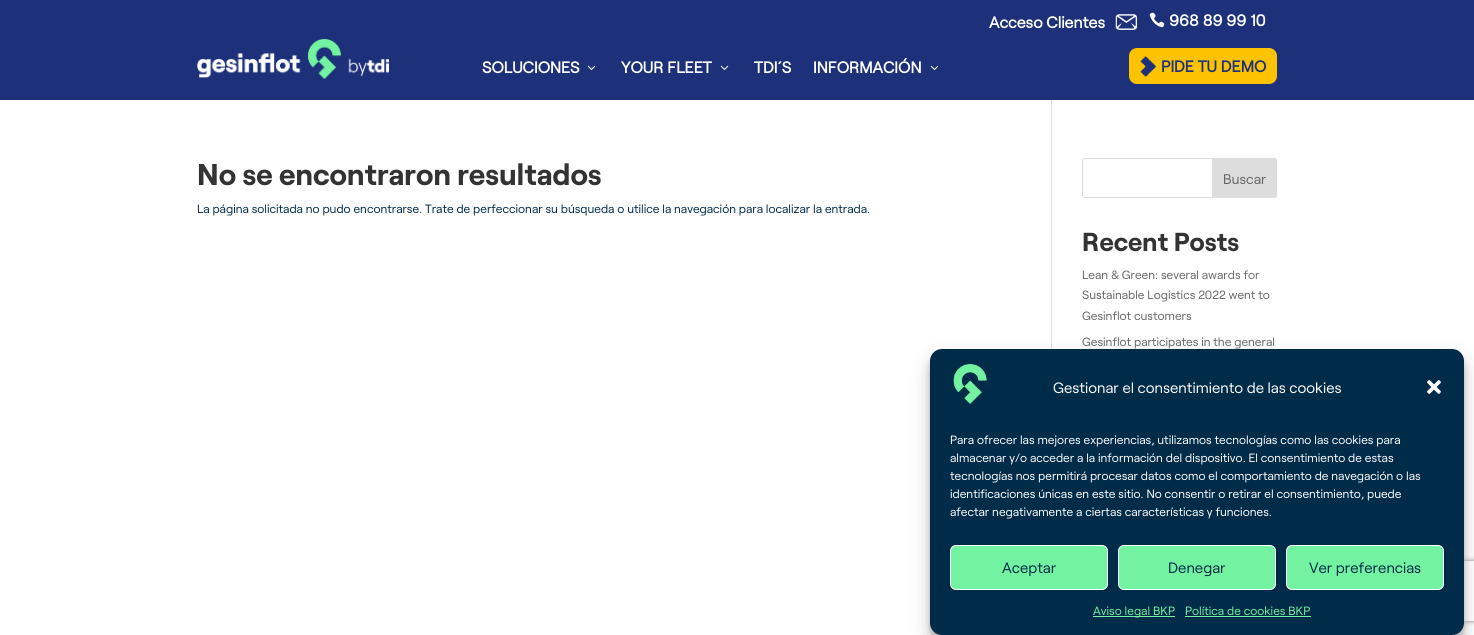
import math
import cairocffi as cairo

surface = cairo.ImageSurface(cairo.FORMAT_RGB24, 1474, 635)
cr = cairo.Context(surface)
options = cairo.FontOptions()
options.set_hint_metrics(cairo.HINT_METRICS_OFF)
options.set_hint_style(cairo.HINT_STYLE_NONE)
cr.set_font_options(options)
cr.set_miter_limit(4)


def use_color(code):
    cr.set_source_rgb(*(v / 255 for v in bytes.fromhex(code[-6:])))


def round_rect(x, y, w, h, r):
    cr.new_sub_path()
    for i, (u, v) in enumerate([(x + w - r, y + h - r), (x + r, y + h - r), (x + r, y + r), (x + w - r, y + r)]):
        cr.arc(u, v, r, i * math.pi / 2, (i + 1) * math.pi / 2)
    cr.close_path()


def shadow(x, y, w, h, r, blur, alpha):
    cr.push_group_with_content(cairo.CONTENT_ALPHA)
    cr.set_operator(cairo.OPERATOR_SOURCE)
    for i in range(15, -16, -2):
        e = blur * i / 6
        if min(w, h) + 2 * e > 0:
            cr.set_source_rgba(0, 0, 0, alpha * math.erfc((i - 1) / 8.5) / 2)
            round_rect(x - e, y - e, w + 2 * e, h + 2 * e, max(0, min(r + e + blur * .6, min(w, h) / 2 + e)))
            cr.fill()
    cr.mask(cr.pop_group())


def picture(path, x, y, w, h):
    cr.save()
    cr.set_source_surface(cairo.ImageSurface.create_from_png(path), x, y)
    cr.rectangle(x, y, w, h)
    cr.fill()
    cr.restore()


use_color("#ffffff")
cr.paint()
use_color("#1d317a")
cr.rectangle(0, 0, 1474, 100)
cr.fill()
cr.select_font_face("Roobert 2", cairo.FONT_SLANT_NORMAL, cairo.FONT_WEIGHT_BOLD)
cr.set_font_size(16)
use_color("#ffffff")
cr.move_to(989, 28)
cr.show_text("Acceso Clientes")
picture("img1.png", 1115, 14, 22, 16)
picture("img2.png", 1149, 12, 16, 16)
cr.move_to(1169, 26)
cr.show_text("968 89 99 10")
picture("img3.png", 197, 39, 192, 40)
cr.move_to(482, 73)
cr.show_text("SOLUCIONES")
picture("img4.png", 587, 65, 9, 5)
cr.move_to(621, 73)
cr.show_text("YOUR FLEET")
picture("img4.png", 720, 65, 9, 5)
cr.move_to(754, 73)
cr.show_text("TDI´S")
cr.move_to(813, 73)
cr.show_text("INFORMACIÓN")
picture("img4.png", 930, 65, 9, 5)
use_color("#fdc300")
round_rect(1129, 48, 148, 36, 8)
cr.fill()
picture("img5.png", 1140, 56, 16, 21)
picture("img6.png", 1144, 66, 2, 2)
use_color("#1d317a")
cr.move_to(1161, 72)
cr.show_text("PIDE TU DEMO")
use_color("#e2e2e2")
cr.rectangle(1051, 100, 1, 249)
cr.fill()
cr.select_font_face("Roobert", cairo.FONT_SLANT_NORMAL, cairo.FONT_WEIGHT_BOLD)
cr.set_font_size(30)
use_color("#333333")
cr.move_to(197, 185)
cr.show_text("No se encontraron resultados")
cr.select_font_face("Roobert")
cr.set_font_size(12)
use_color("#002b49")
cr.move_to(197, 213)
cr.show_text("La página solicitada no pudo encontrarse. Trate de perfeccionar su búsqueda o utilice la navegación para localizar la entrada.")
round_rect(1082.5, 158.5, 194, 39, 2.5)
use_color("#dddddd")
cr.set_line_width(1)
cr.stroke()
cr.new_path()
cr.move_to(1212.5, 158.5)
cr.line_to(1274, 158.5)
cr.curve_to(1275.5, 158.5, 1276.5, 159.5, 1276.5, 161)
cr.line_to(1276.5, 195)
cr.curve_to(1276.5, 196.5, 1275.5, 197.5, 1274, 197.5)
cr.line_to(1212.5, 197.5)
cr.close_path()
cr.fill_preserve()
cr.stroke()
cr.set_font_size(14)
use_color("#666666")
cr.move_to(1223, 184)
cr.show_text("Buscar")
cr.select_font_face("Roobert", cairo.FONT_SLANT_NORMAL, cairo.FONT_WEIGHT_BOLD)
cr.set_font_size(26)
use_color("#333333")
cr.move_to(1082, 251)
cr.show_text("Recent Posts")
cr.select_font_face("Roobert")
cr.set_font_size(12)
use_color("#666666")
cr.move_to(1082, 279)
cr.show_text("Lean & Green: several awards for")
cr.move_to(1082, 299)
cr.show_text("Sustainable Logistics 2022 went to")
cr.move_to(1082, 320)
cr.show_text("Gesinflot customers")
cr.move_to(1082, 346)
cr.show_text("Gesinflot participates in the general")
use_color("#000000")
shadow(930, 355, 534, 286, 12, 3, 0.23)
shadow(930, 359, 534, 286, 12, 10, 0.19)
cr.save()
cr.set_fill_rule(cairo.FILL_RULE_EVEN_ODD)
cr.new_path()
cr.move_to(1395, 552)
cr.line_to(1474, 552)
cr.line_to(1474, 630)
cr.line_to(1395, 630)
cr.close_path()
cr.move_to(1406, 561)
cr.line_to(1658, 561)
cr.curve_to(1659, 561, 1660, 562, 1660, 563)
cr.line_to(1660, 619)
cr.curve_to(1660, 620, 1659, 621, 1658, 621)
cr.line_to(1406, 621)
cr.curve_to(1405, 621, 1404, 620, 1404, 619)
cr.line_to(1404, 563)
cr.curve_to(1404, 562, 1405, 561, 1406, 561)
cr.close_path()
cr.clip()
use_color("#808080")
shadow(1404, 561, 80, 60, 2, 2.5, 1)
cr.restore()
use_color("#002b49")
round_rect(930, 349, 534, 286, 12)
cr.fill()
picture("img7.png", 953, 364, 34, 40)
cr.set_font_size(15)
use_color("#ffffff")
cr.move_to(1053, 393)
cr.show_text("Gestionar el consentimiento de las cookies")
picture("img8.png", 1427, 380, 14, 14)
cr.set_font_size(12)
cr.move_to(950, 444)
cr.show_text("Para ofrecer las mejores experiencias, utilizamos tecnologías como las cookies para")
cr.move_to(950, 462)
cr.show_text("almacenar y/o acceder a la información del dispositivo. El consentimiento de estas")
cr.move_to(950, 480)
cr.show_text("tecnologías nos permitirá procesar datos como el comportamiento de navegación o las")
cr.move_to(950, 498)
cr.show_text("identificaciones únicas en este sitio. No consentir o retirar el consentimiento, puede")
cr.move_to(950, 516)
cr.show_text("afectar negativamente a ciertas características y funciones.")
use_color("#73f2a1")
round_rect(950.5, 545.5, 157, 44, 5.5)
cr.fill_preserve()
use_color("#ffffff")
cr.stroke()
cr.set_font_size(15)
use_color("#002b49")
cr.move_to(1002, 573)
cr.show_text("Aceptar")
use_color("#73f2a1")
round_rect(1118.5, 545.5, 157, 44, 5.5)
cr.fill_preserve()
use_color("#ffffff")
cr.stroke()
use_color("#002b49")
cr.move_to(1168, 573)
cr.show_text("Denegar")
use_color("#73f2a1")
round_rect(1286.5, 545.5, 157, 44, 5.5)
cr.fill_preserve()
use_color("#ffffff")
cr.stroke()
use_color("#002b49")
cr.move_to(1309, 573)
cr.show_text("Ver preferencias")
use_color("#73f2a1")
cr.rectangle(1093, 616, 82, 1)
cr.fill()
cr.set_font_size(12)
cr.move_to(1093, 615)
cr.show_text("Aviso legal BKP")
cr.move_to(1185, 615)
cr.show_text("Política de cookies BKP")
cr.rectangle(1185, 616, 126, 1)
cr.fill()
surface.write_to_png("result.png")
